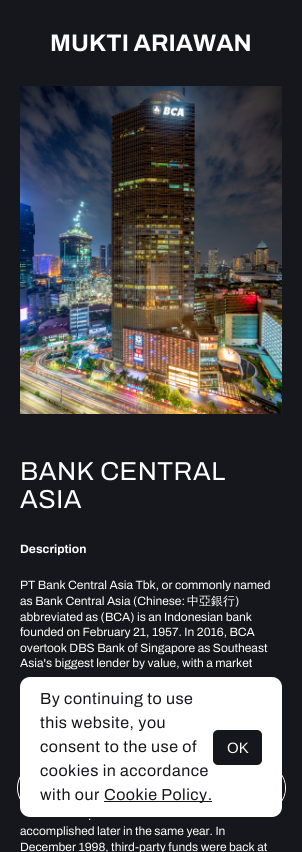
import math
import cairocffi as cairo

surface = cairo.ImageSurface(cairo.FORMAT_RGB24, 302, 852)
cr = cairo.Context(surface)
options = cairo.FontOptions()
options.set_hint_metrics(cairo.HINT_METRICS_OFF)
options.set_hint_style(cairo.HINT_STYLE_NONE)
cr.set_font_options(options)
cr.set_miter_limit(4)


def use_color(code):
    cr.set_source_rgb(*(v / 255 for v in bytes.fromhex(code[-6:])))


def spaced_text(x, y, s, letter, word):
    cr.move_to(x, y)
    for ch in s:
        cr.show_text(ch)
        cr.rel_move_to(letter + word * (ch == ' '), 0)


def round_rect(x, y, w, h, r):
    cr.new_sub_path()
    for i, (u, v) in enumerate([(x + w - r, y + h - r), (x + r, y + h - r), (x + r, y + r), (x + w - r, y + r)]):
        cr.arc(u, v, r, i * math.pi / 2, (i + 1) * math.pi / 2)
    cr.close_path()


def picture(path, x, y, w, h):
    cr.save()
    cr.set_source_surface(cairo.ImageSurface.create_from_png(path), x, y)
    cr.rectangle(x, y, w, h)
    cr.fill()
    cr.restore()


use_color("#16161d")
cr.paint()
cr.select_font_face("Archivo", cairo.FONT_SLANT_NORMAL, cairo.FONT_WEIGHT_BOLD)
cr.set_font_size(24)
use_color("#ffffff")
cr.move_to(50, 51)
cr.show_text("MUKTI ARIAWAN")
round_rect(17.5, 764.5, 268, 47, 23.5)
cr.set_line_width(1)
cr.stroke()
use_color("#16161d")
cr.new_path()
cr.move_to(173, 765)
cr.line_to(262, 765)
cr.curve_to(274.5, 765, 285, 775.5, 285, 788)
cr.curve_to(285, 800.5, 274.5, 811, 262, 811)
cr.line_to(173, 811)
cr.close_path()
cr.fill()
picture("img1.png", 20, 86, 262, 328)
cr.select_font_face("Archivo")
cr.set_font_size(26)
use_color("#ffffff")
spaced_text(20, 480, "BANK CENTRAL", 0.5, 0)
spaced_text(20, 508, "ASIA", 0.5, 0)
cr.select_font_face("Archivo", cairo.FONT_SLANT_NORMAL, cairo.FONT_WEIGHT_BOLD)
cr.set_font_size(12)
cr.move_to(20, 553)
cr.show_text("Description")
cr.select_font_face("Archivo")
cr.move_to(20, 589)
cr.show_text("PT Bank Central Asia Tbk, or commonly named")
cr.move_to(20, 605)
cr.show_text("as Bank Central Asia (Chinese:")
cr.select_font_face("WenQuanYi Zen Hei Medium")
cr.move_to(187, 605)
cr.show_text("中亞銀行")
cr.select_font_face("Archivo")
cr.move_to(235, 605)
cr.show_text(")")
cr.move_to(20, 621)
cr.show_text("abbreviated as (BCA) is an Indonesian bank")
cr.move_to(20, 636)
cr.show_text("founded on February 21, 1957. In 2016, BCA")
cr.move_to(20, 652)
cr.show_text("overtook DBS Bank of Singapore as Southeast")
cr.move_to(20, 667)
cr.show_text("Asia's biggest lender by value, with a market")
cr.move_to(88, 820)
cr.show_text(".")
cr.move_to(20, 835)
cr.show_text("accomplished later in the same year. In")
cr.move_to(20, 851)
cr.show_text("December 1998, third-party funds were back at")
round_rect(20, 677, 262, 140, 10)
cr.fill()
cr.set_font_size(16)
use_color("#16161d")
spaced_text(40, 704, "By continuing to use", 0.5, 0)
spaced_text(40, 728, "this website, you", 0.5, 0)
spaced_text(40, 752, "consent to the use of", 0.5, 0)
spaced_text(40, 776, "cookies in accordance", 0.5, 0)
spaced_text(40, 800, "with our", 0.5, 0)
cr.rectangle(104, 801, 108, 1)
cr.fill()
spaced_text(104, 800, "Cookie Policy.", 0.5, 0)
round_rect(213, 730, 49, 35, 5)
cr.fill()
cr.select_font_face("Liberation Sans")
cr.set_font_size(15)
use_color("#ffffff")
cr.move_to(227, 753)
cr.show_text("OK")
surface.write_to_png("result.png")
